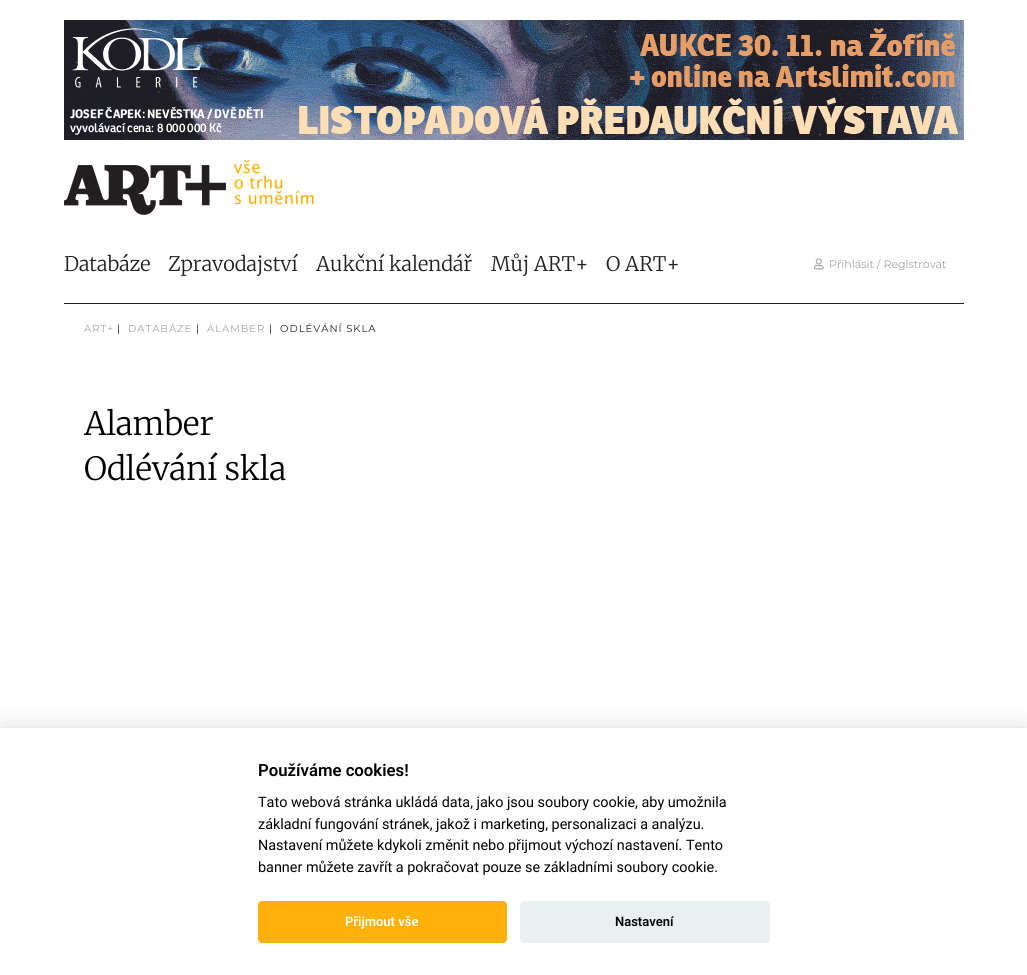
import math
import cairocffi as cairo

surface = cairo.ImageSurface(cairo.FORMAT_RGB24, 1027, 975)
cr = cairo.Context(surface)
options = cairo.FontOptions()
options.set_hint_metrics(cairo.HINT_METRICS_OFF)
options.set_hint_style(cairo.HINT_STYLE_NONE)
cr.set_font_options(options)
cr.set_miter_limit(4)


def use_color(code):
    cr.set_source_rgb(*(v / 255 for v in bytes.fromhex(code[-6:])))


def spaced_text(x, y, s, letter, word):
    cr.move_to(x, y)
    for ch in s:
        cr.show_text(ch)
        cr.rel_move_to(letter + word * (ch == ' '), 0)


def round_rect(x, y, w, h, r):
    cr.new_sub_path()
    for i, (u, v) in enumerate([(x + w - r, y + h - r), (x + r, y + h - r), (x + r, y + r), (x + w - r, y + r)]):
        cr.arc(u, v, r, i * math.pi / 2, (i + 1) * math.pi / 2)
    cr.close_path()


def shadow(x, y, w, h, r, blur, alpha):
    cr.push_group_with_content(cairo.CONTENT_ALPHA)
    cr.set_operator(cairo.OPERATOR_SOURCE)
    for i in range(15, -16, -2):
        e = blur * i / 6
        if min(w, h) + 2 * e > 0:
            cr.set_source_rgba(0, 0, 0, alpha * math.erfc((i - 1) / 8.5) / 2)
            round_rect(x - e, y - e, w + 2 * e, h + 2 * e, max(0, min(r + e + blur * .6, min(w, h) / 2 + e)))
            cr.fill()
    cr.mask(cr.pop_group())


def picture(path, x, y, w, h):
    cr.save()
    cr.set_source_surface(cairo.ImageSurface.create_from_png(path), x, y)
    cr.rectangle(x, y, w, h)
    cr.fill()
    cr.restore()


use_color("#ffffff")
cr.paint()
picture("img1.png", 64, 20, 900, 120)
use_color("#231f20")
cr.rectangle(64, 303, 900, 1)
cr.fill()
picture("img2.png", 64, 165, 162, 50)
picture("img3.png", 233, 160, 81, 45)
cr.select_font_face("Merriweather Light")
cr.set_font_size(20)
cr.move_to(64, 271)
cr.show_text("Databáze")
cr.move_to(168, 271)
cr.show_text("Zpravodajství")
cr.move_to(316, 271)
cr.show_text("Aukční kalendář")
cr.move_to(491, 271)
cr.show_text("Můj ART+")
cr.move_to(606, 271)
cr.show_text("O ART+")
picture("img4.png", 814, 258, 10, 12)
cr.select_font_face("Montserrat")
cr.set_font_size(11)
use_color("#9fa1a4")
cr.move_to(829, 268)
cr.show_text("Přihlásit / Registrovat")
cr.set_font_size(10)
spaced_text(84, 332, "ART+", 1, 0)
use_color("#000000")
spaced_text(117, 332, "|", 1, 0)
use_color("#9fa1a4")
spaced_text(128, 332, "DATABÁZE", 1, 0)
use_color("#000000")
spaced_text(196, 332, "|", 1, 0)
use_color("#9fa1a4")
spaced_text(207, 332, "ALAMBER", 1, 0)
use_color("#000000")
spaced_text(269, 332, "|", 1, 0)
use_color("#231f20")
spaced_text(280, 332, "ODLÉVÁNÍ SKLA", 1, 0)
cr.select_font_face("Merriweather Light")
cr.set_font_size(32)
use_color("#000000")
cr.move_to(84, 435)
cr.show_text("Alamber")
cr.move_to(84, 480)
cr.show_text("Odlévání skla")
use_color("#020203")
shadow(0, 738, 1027, 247, 0, 15, 0.28)
use_color("#ffffff")
cr.rectangle(0, 728, 1027, 247)
cr.fill()
cr.select_font_face("Roboto SemiBold")
cr.set_font_size(16.75)
use_color("#000000")
cr.move_to(258, 776)
cr.show_text("Používáme cookies!")
cr.select_font_face("Roboto")
cr.set_font_size(14.4)
cr.move_to(258, 807)
cr.show_text("Tato webová stránka ukládá data, jako jsou soubory cookie, aby umožnila")
cr.move_to(258, 829)
cr.show_text("základní fungování stránek, jakož i marketing, personalizaci a analýzu.")
cr.move_to(258, 850)
cr.show_text("Nastavení můžete kdykoli změnit nebo přijmout výchozí nastavení. Tento")
cr.move_to(258, 872)
cr.show_text("banner můžete zavřít a pokračovat pouze se základními soubory cookie.")
use_color("#feb00b")
round_rect(258, 901, 249, 42, 4)
cr.fill()
cr.select_font_face("Roboto SemiBold")
cr.set_font_size(13)
use_color("#ffffff")
cr.move_to(345, 926)
cr.show_text("Přijmout vše")
use_color("#eaeff2")
round_rect(520, 901, 250, 42, 4)
cr.fill()
use_color("#000000")
cr.move_to(615, 926)
cr.show_text("Nastavení")
surface.write_to_png("result.png")
